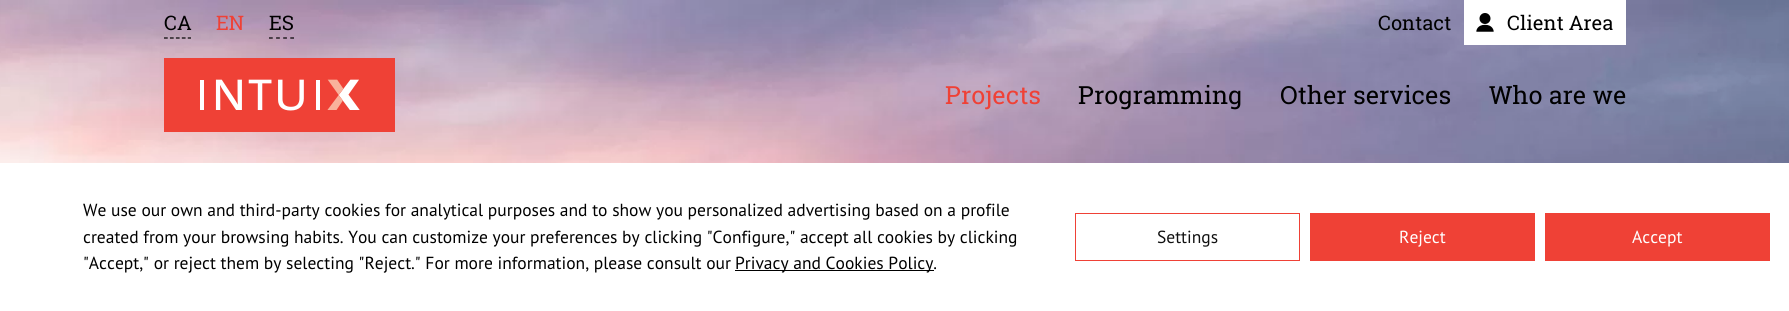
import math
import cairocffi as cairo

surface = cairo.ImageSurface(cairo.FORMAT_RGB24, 1789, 311)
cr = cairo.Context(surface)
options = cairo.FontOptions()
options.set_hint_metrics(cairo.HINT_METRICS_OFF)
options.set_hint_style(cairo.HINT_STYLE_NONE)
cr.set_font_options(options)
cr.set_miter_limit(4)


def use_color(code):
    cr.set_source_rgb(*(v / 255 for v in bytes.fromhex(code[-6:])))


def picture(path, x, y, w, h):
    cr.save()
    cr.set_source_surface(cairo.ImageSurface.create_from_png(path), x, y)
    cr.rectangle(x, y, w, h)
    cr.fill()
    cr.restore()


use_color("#ffffff")
cr.paint()
picture("img1.png", 0, 0, 1789, 163)
cr.new_path()
cr.move_to(164, 38)
cr.line_to(191, 38)
use_color("#000000")
cr.set_line_width(1.2)
cr.set_dash([3.75, 2.19])
cr.stroke()
cr.select_font_face("Roboto Slab")
cr.set_font_size(20)
cr.move_to(164, 30)
cr.show_text("CA")
use_color("#ef4136")
cr.move_to(216, 30)
cr.show_text("EN")
cr.new_path()
cr.move_to(269, 38)
cr.line_to(294, 38)
use_color("#000000")
cr.set_dash([3.75, 3.34])
cr.stroke()
cr.move_to(269, 30)
cr.show_text("ES")
cr.move_to(1378, 30)
cr.show_text("Contact")
use_color("#ffffff")
cr.rectangle(1464, 0, 162, 45)
cr.fill()
picture("img2.png", 1476, 13, 18, 19)
use_color("#000000")
cr.move_to(1507, 30)
cr.show_text("Client Area")
picture("img3.png", 164, 58, 231, 74)
cr.set_font_size(25)
use_color("#ef4136")
cr.move_to(945, 104)
cr.show_text("Projects")
use_color("#000000")
cr.move_to(1078, 104)
cr.show_text("Programming")
cr.move_to(1280, 104)
cr.show_text("Other services")
cr.move_to(1489, 104)
cr.show_text("Who are we")
cr.select_font_face("PT Sans")
cr.set_font_size(17.5)
cr.move_to(83, 216)
cr.show_text("We use our own and third-party cookies for analytical purposes and to show you personalized advertising based on a profile")
cr.move_to(83, 243)
cr.show_text("created from your browsing habits. You can customize your preferences by clicking \"Configure,\" accept all cookies by clicking")
cr.move_to(83, 269)
cr.show_text("\"Accept,\" or reject them by selecting \"Reject.\" For more information, please consult our")
cr.rectangle(735, 270, 199, 1)
cr.fill()
cr.move_to(735, 269)
cr.show_text("Privacy and Cookies Policy.")
cr.rectangle(1075.5, 213.5, 224, 47)
use_color("#ef4136")
cr.set_line_width(1)
cr.set_dash([])
cr.stroke()
use_color("#111111")
cr.move_to(1157, 243)
cr.show_text("Settings")
use_color("#ef4136")
cr.rectangle(1310, 213, 225, 48)
cr.fill()
use_color("#ffffff")
cr.move_to(1399, 243)
cr.show_text("Reject")
use_color("#ef4136")
cr.rectangle(1545, 213, 225, 48)
cr.fill()
use_color("#ffffff")
cr.move_to(1632, 243)
cr.show_text("Accept")
surface.write_to_png("result.png")
